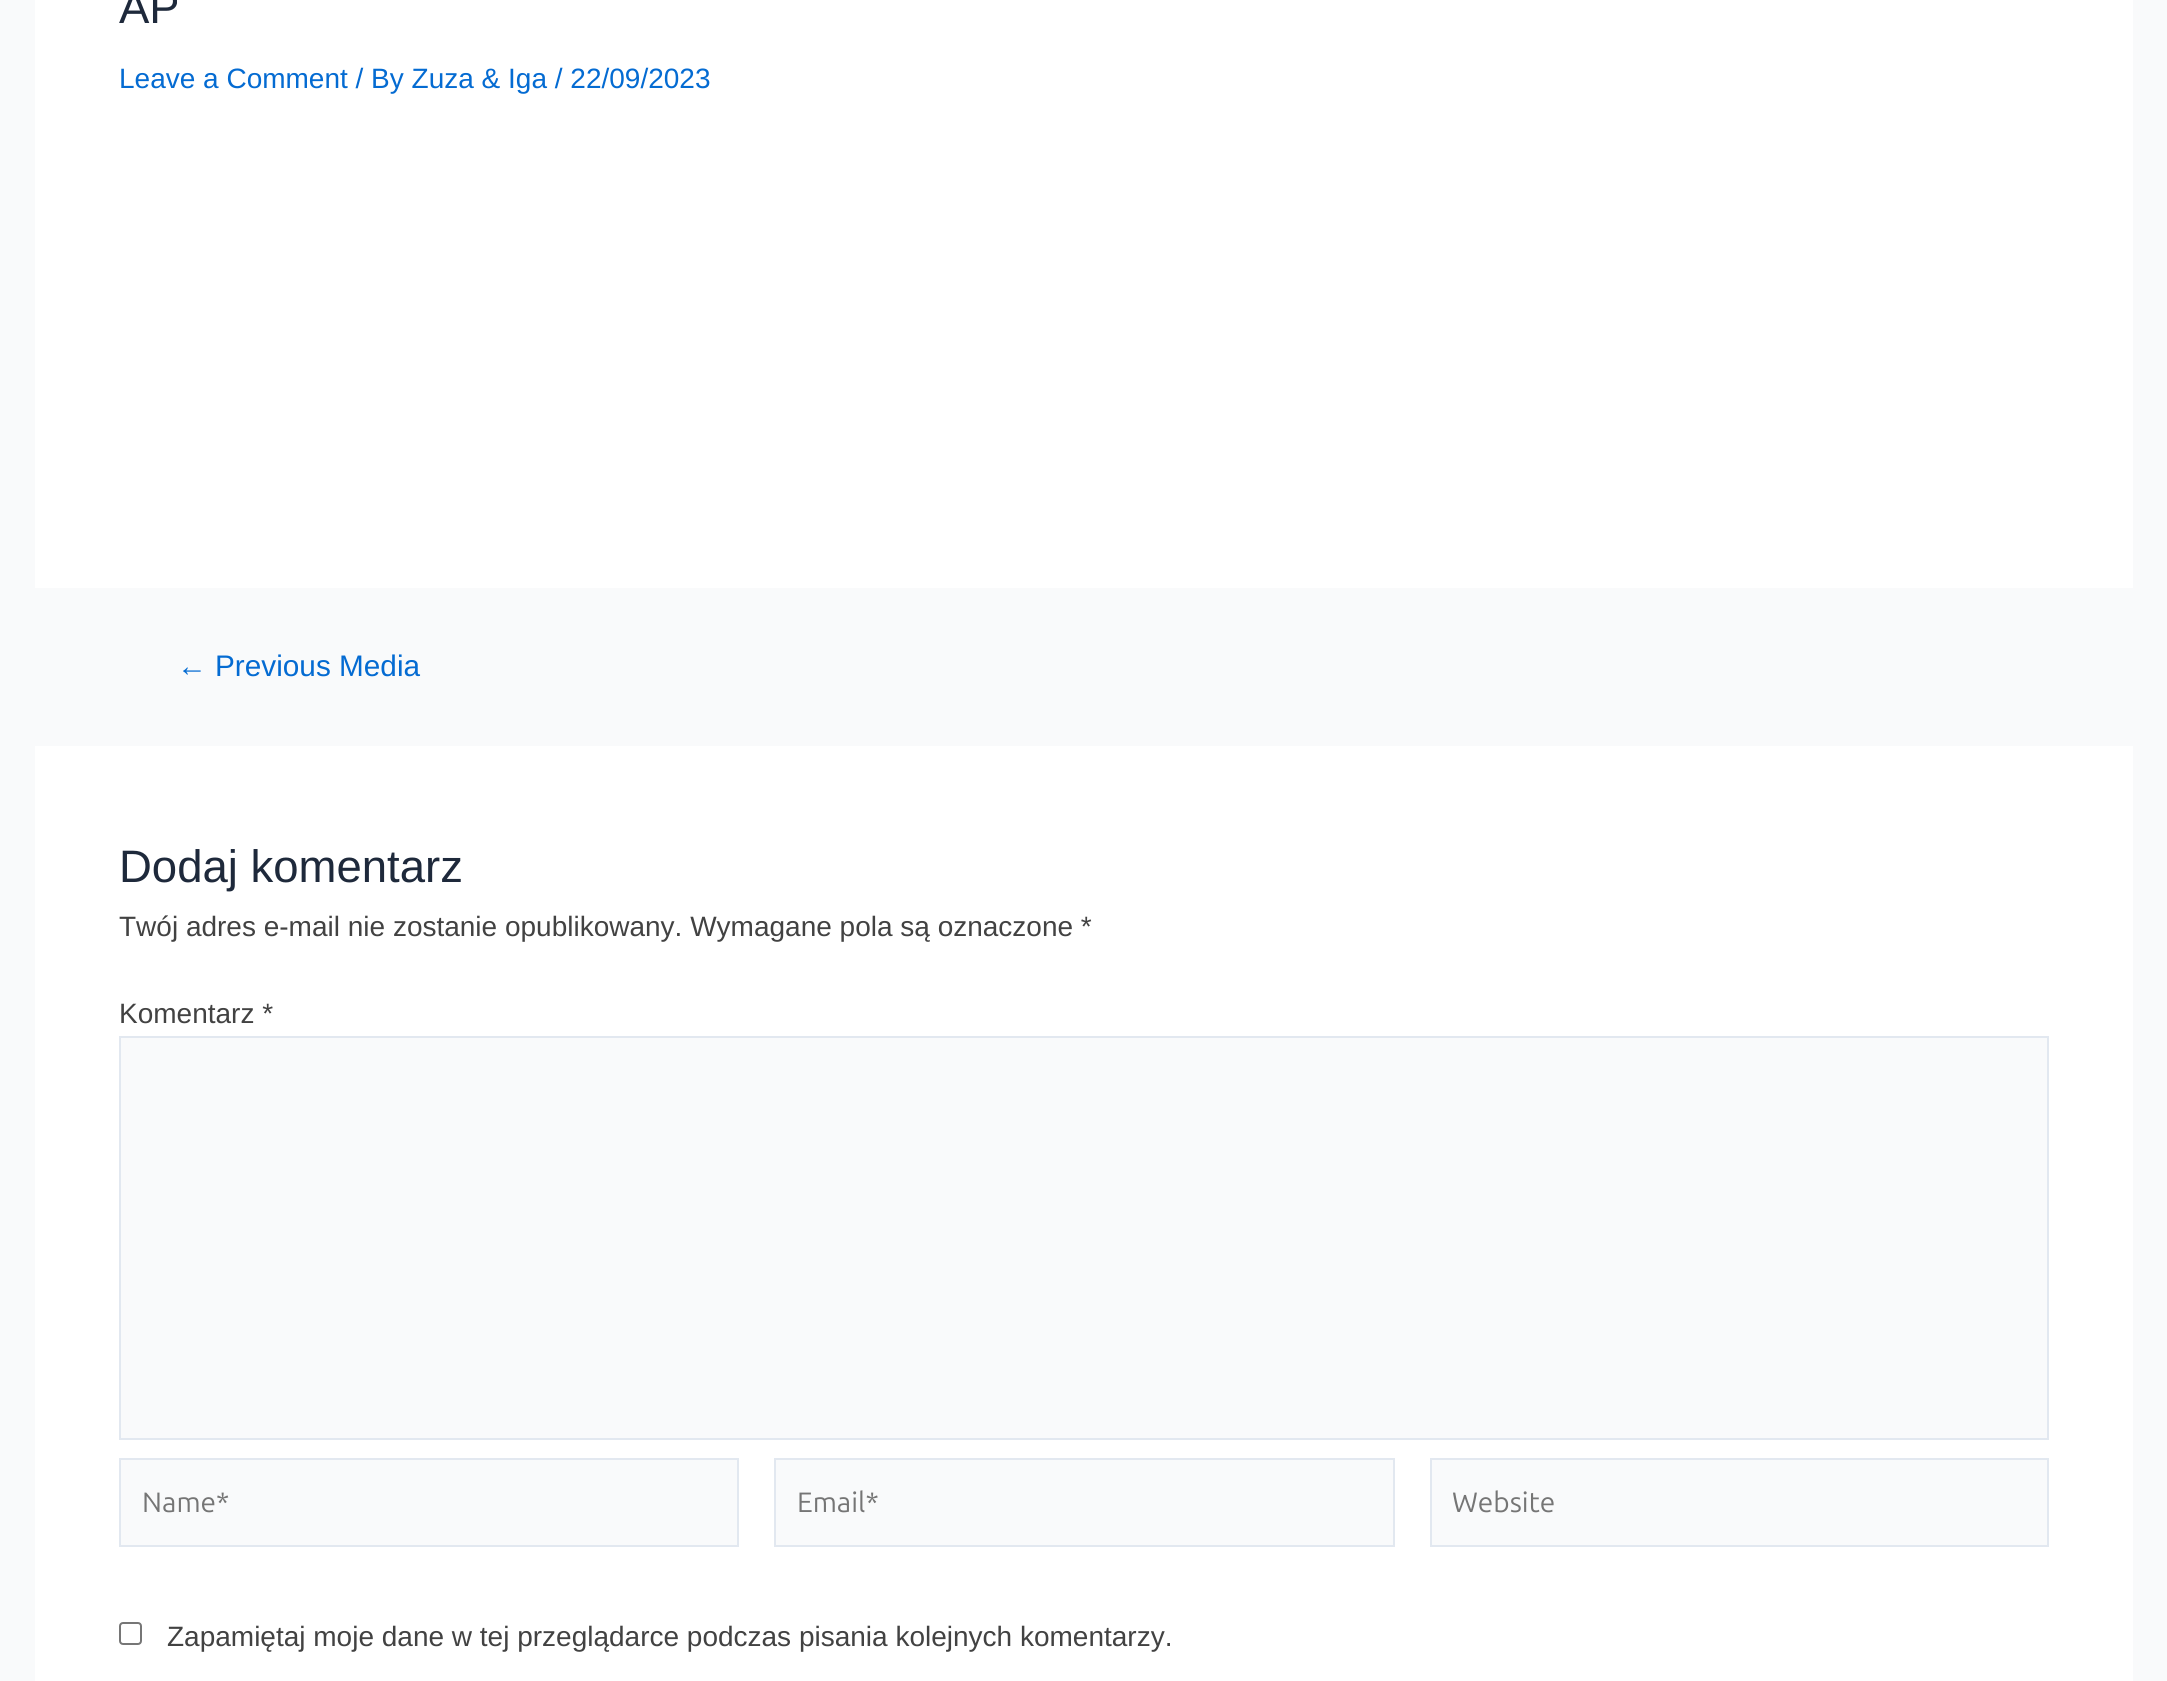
import math
import cairocffi as cairo

surface = cairo.ImageSurface(cairo.FORMAT_RGB24, 2167, 1681)
cr = cairo.Context(surface)
options = cairo.FontOptions()
options.set_hint_metrics(cairo.HINT_METRICS_OFF)
options.set_hint_style(cairo.HINT_STYLE_NONE)
cr.set_font_options(options)
cr.set_miter_limit(4)


def use_color(code):
    cr.set_source_rgb(*(v / 255 for v in bytes.fromhex(code[-6:])))


def round_rect(x, y, w, h, r):
    cr.new_sub_path()
    for i, (u, v) in enumerate([(x + w - r, y + h - r), (x + r, y + h - r), (x + r, y + r), (x + w - r, y + r)]):
        cr.arc(u, v, r, i * math.pi / 2, (i + 1) * math.pi / 2)
    cr.close_path()


use_color("#f9fafb")
cr.paint()
use_color("#ffffff")
cr.rectangle(35, 0, 2098, 588)
cr.fill()
cr.select_font_face("Liberation Sans")
cr.set_font_size(45.5)
use_color("#1e293b")
cr.move_to(119, 23)
cr.show_text("AP")
cr.set_font_size(28)
use_color("#046bd2")
cr.move_to(119, 88)
cr.show_text("Leave a Comment / By Zuza & Iga / 22/09/2023")
cr.set_font_size(29.75)
cr.move_to(177, 676)
cr.show_text("← Previous Media")
use_color("#ffffff")
cr.rectangle(35, 746, 2098, 935)
cr.fill()
cr.set_font_size(45.5)
use_color("#1e293b")
cr.move_to(119, 882)
cr.show_text("Dodaj komentarz")
cr.set_font_size(28)
use_color("#424242")
cr.move_to(119, 936)
cr.show_text("Twój adres e-mail nie zostanie opublikowany. Wymagane pola są oznaczone *")
cr.move_to(119, 1023)
cr.show_text("Komentarz *")
use_color("#f9fafb")
cr.rectangle(120, 1037, 1928, 402)
cr.fill_preserve()
use_color("#e2e8f0")
cr.stroke()
use_color("#f9fafb")
cr.rectangle(120, 1459, 618, 87)
cr.fill_preserve()
use_color("#e2e8f0")
cr.stroke()
cr.select_font_face("Ubuntu")
use_color("#757575")
cr.move_to(142, 1512)
cr.show_text("Name*")
use_color("#f9fafb")
cr.rectangle(775, 1459, 619, 87)
cr.fill_preserve()
use_color("#e2e8f0")
cr.stroke()
use_color("#757575")
cr.move_to(797, 1512)
cr.show_text("Email*")
use_color("#f9fafb")
cr.rectangle(1431, 1459, 617, 87)
cr.fill_preserve()
use_color("#e2e8f0")
cr.stroke()
use_color("#757575")
cr.move_to(1452, 1512)
cr.show_text("Website")
round_rect(120, 1623, 21, 21, 3)
use_color("#767676")
cr.stroke()
cr.select_font_face("Liberation Sans")
use_color("#424242")
cr.move_to(167, 1646)
cr.show_text("Zapamiętaj moje dane w tej przeglądarce podczas pisania kolejnych komentarzy.")
surface.write_to_png("result.png")
